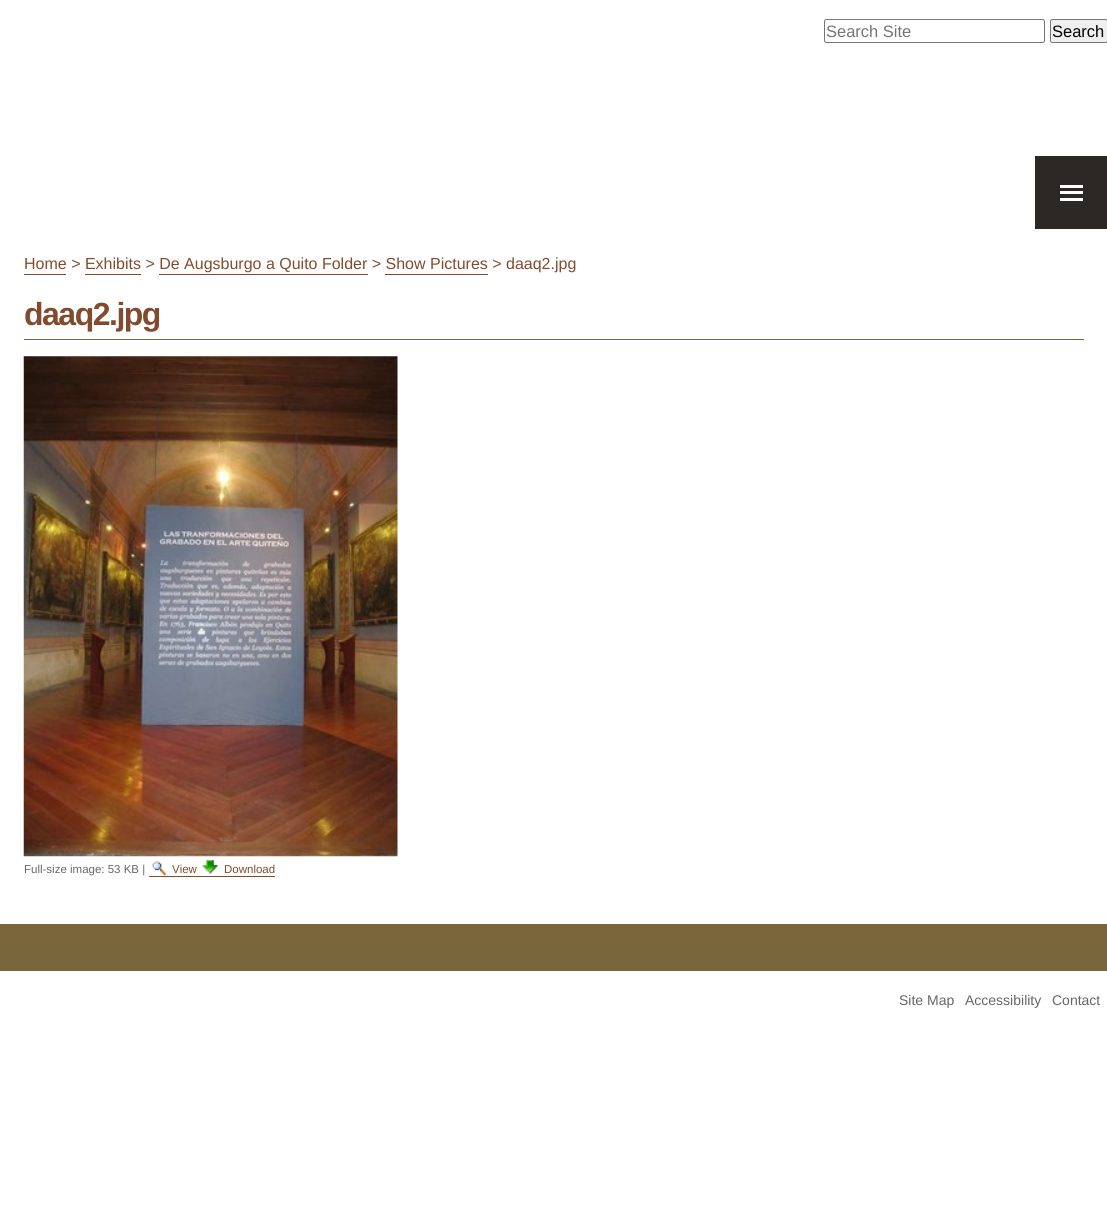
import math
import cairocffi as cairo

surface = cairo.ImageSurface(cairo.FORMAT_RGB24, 1107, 1210)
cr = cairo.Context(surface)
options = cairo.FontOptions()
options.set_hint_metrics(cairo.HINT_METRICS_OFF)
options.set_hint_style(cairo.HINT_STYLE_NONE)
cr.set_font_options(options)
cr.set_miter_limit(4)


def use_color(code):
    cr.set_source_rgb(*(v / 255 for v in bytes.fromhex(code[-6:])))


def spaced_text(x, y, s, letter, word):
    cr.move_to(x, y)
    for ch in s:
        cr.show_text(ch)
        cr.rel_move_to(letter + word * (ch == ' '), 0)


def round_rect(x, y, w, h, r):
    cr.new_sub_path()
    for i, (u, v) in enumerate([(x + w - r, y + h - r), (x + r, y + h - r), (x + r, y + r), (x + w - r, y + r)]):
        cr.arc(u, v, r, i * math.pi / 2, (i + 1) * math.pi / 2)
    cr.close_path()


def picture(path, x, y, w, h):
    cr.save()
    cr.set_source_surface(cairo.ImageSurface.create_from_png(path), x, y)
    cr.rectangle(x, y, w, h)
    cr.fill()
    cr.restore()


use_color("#ffffff")
cr.paint()
round_rect(824.5, 19.5, 220, 23, 2)
use_color("#767676")
cr.set_line_width(1)
cr.stroke()
cr.select_font_face("Liberation Sans")
cr.set_font_size(16.5)
use_color("#757575")
cr.move_to(826, 37)
cr.show_text("Search Site")
use_color("#efefef")
round_rect(1050.5, 19.5, 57, 23, 2)
cr.fill_preserve()
use_color("#767676")
cr.stroke()
use_color("#000000")
cr.move_to(1052, 37)
cr.show_text("Search")
use_color("#2c2825")
cr.rectangle(1035, 156, 72, 73)
cr.fill()
use_color("#ffffff")
cr.rectangle(1060, 191, 23, 3)
cr.fill()
cr.rectangle(1060, 185, 23, 3)
cr.fill()
cr.rectangle(1060, 198, 23, 3)
cr.fill()
use_color("#834b2d")
cr.rectangle(24, 274, 42, 1)
cr.fill()
cr.set_font_size(16)
cr.move_to(24, 269)
cr.show_text("Home > Exhibits > De Augsburgo a Quito Folder > Show Pictures > daaq2.jpg")
cr.rectangle(85, 274, 56, 1)
cr.fill()
cr.rectangle(159, 274, 209, 1)
cr.fill()
cr.rectangle(385, 274, 103, 1)
cr.fill()
use_color("#7a663b")
cr.rectangle(24, 339, 1060, 1)
cr.fill()
cr.select_font_face("Liberation Sans", cairo.FONT_SLANT_NORMAL, cairo.FONT_WEIGHT_BOLD)
cr.set_font_size(32)
use_color("#834b2d")
spaced_text(24, 325, "daaq2.jpg", -1.5, 0)
picture("img1.png", 23, 356, 375, 501)
cr.select_font_face("Liberation Sans")
cr.set_font_size(11.5)
use_color("#666666")
cr.move_to(24, 873)
cr.show_text("Full-size image: 53 KB |")
picture("img2.png", 152, 861, 15, 15)
use_color("#834b2d")
cr.move_to(172, 873)
cr.show_text("View")
cr.rectangle(149, 876, 126, 1)
cr.fill()
picture("img3.png", 202, 859, 16, 15)
cr.move_to(224, 873)
cr.show_text("Download")
use_color("#7a663b")
cr.rectangle(0, 924, 1107, 47)
cr.fill()
cr.set_font_size(14)
use_color("#666666")
cr.move_to(899, 1005)
cr.show_text("Site Map")
cr.move_to(965, 1005)
cr.show_text("Accessibility")
cr.move_to(1052, 1005)
cr.show_text("Contact")
surface.write_to_png("result.png")
